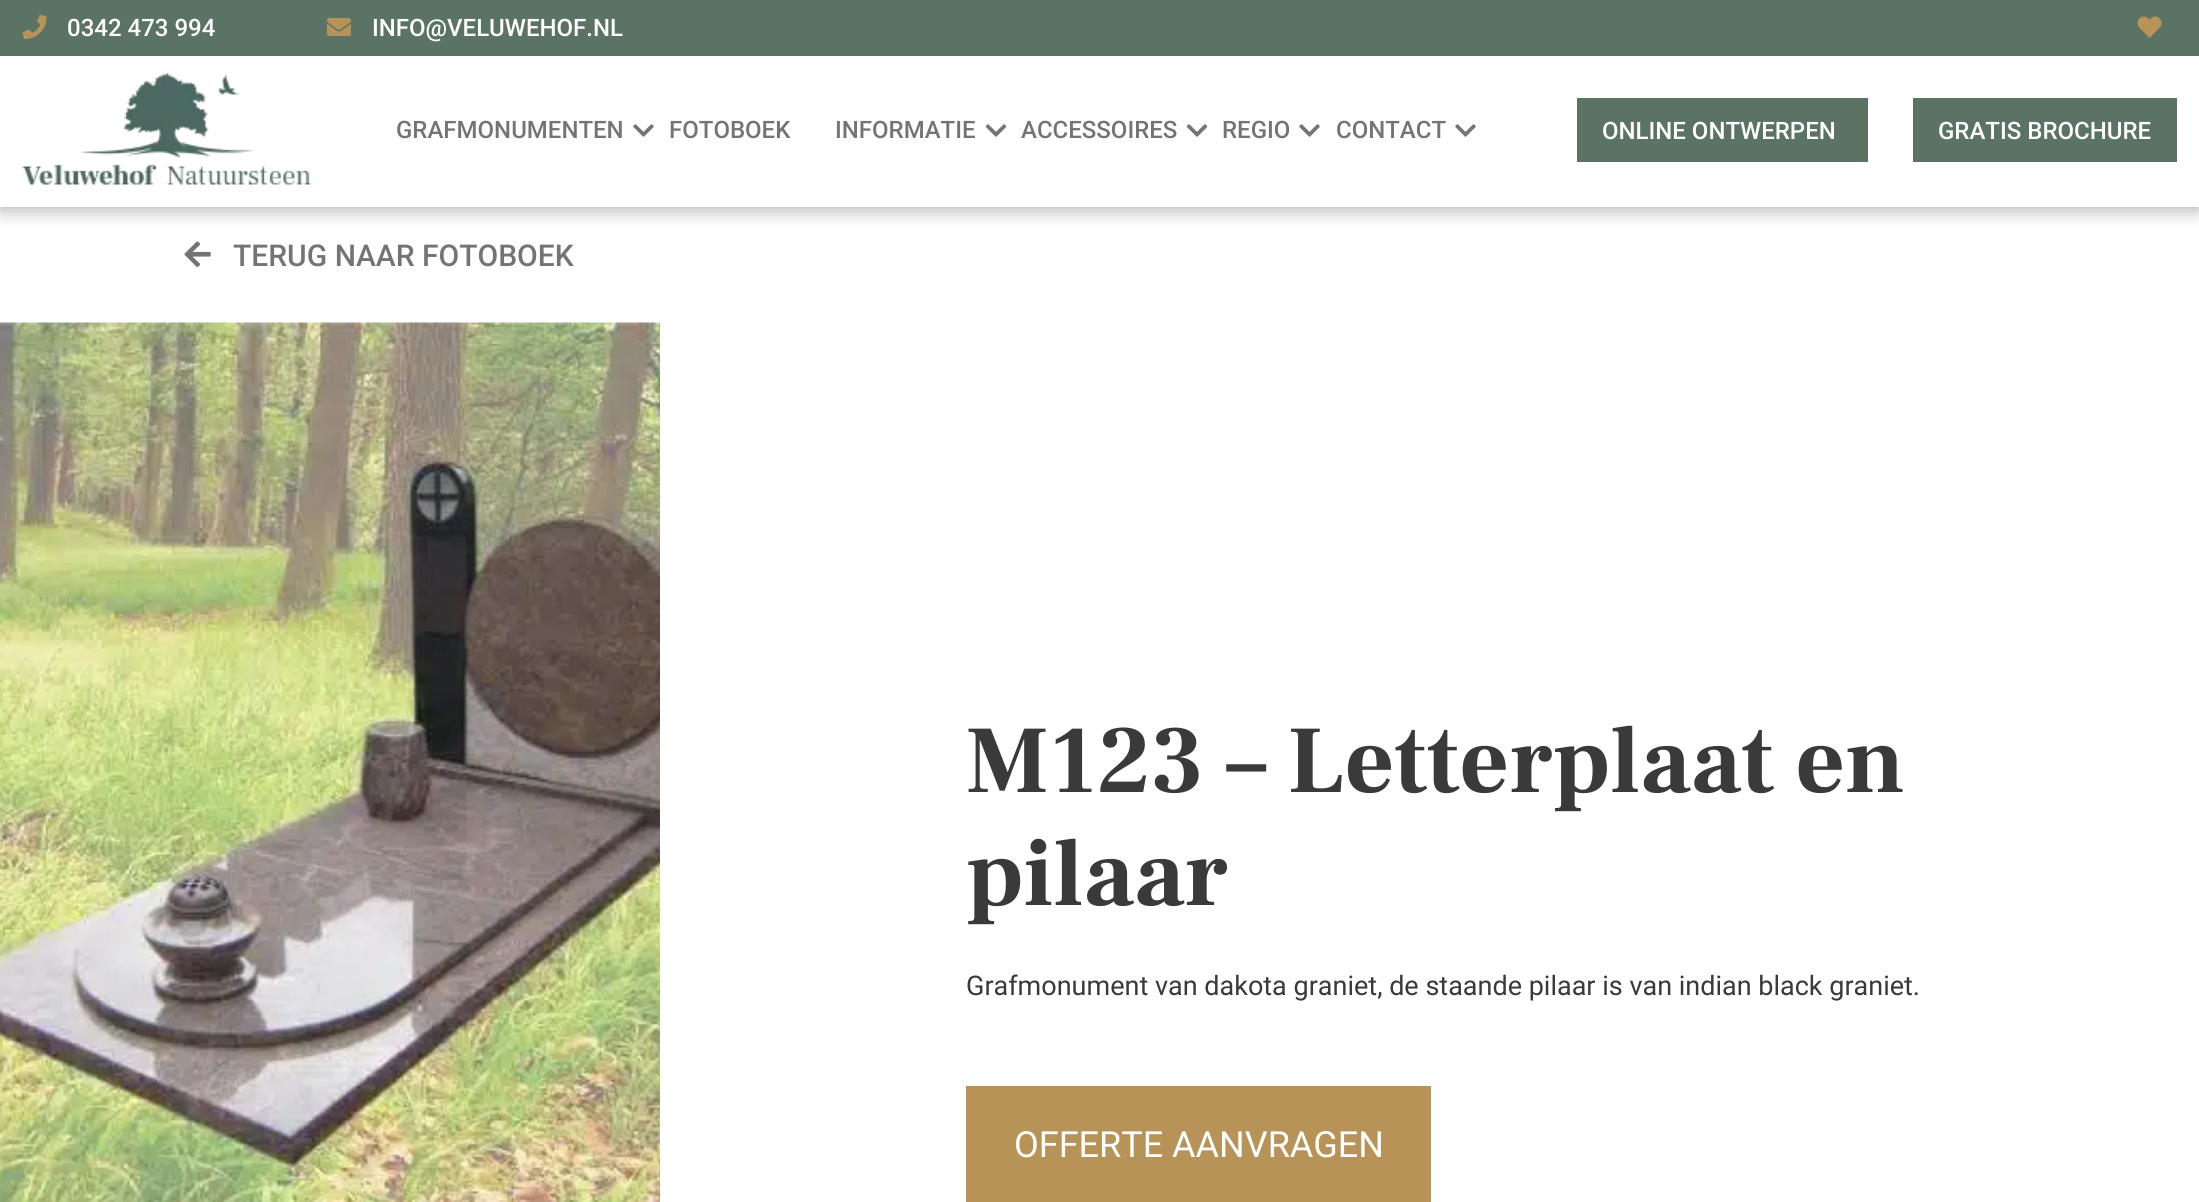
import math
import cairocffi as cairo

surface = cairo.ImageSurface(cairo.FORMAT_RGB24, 2199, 1202)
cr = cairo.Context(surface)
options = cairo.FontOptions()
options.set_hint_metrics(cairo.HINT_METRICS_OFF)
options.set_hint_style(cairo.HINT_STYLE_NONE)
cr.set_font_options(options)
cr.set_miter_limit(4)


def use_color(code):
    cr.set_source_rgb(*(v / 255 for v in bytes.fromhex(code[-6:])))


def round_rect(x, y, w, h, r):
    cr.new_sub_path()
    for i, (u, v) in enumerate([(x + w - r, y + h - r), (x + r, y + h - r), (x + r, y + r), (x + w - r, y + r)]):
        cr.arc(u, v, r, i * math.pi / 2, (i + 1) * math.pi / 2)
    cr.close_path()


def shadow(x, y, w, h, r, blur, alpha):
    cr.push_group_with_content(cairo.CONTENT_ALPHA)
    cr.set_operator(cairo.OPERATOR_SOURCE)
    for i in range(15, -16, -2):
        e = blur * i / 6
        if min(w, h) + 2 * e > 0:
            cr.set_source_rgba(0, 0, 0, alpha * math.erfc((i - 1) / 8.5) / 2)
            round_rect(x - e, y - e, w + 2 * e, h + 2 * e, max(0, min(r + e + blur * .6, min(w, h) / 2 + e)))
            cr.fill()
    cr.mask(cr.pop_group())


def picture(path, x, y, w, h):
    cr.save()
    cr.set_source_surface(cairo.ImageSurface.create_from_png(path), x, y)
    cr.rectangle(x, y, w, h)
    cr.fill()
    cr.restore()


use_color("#ffffff")
cr.paint()
cr.save()
cr.rectangle(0, 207, 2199, 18)
cr.clip()
use_color("#000000")
shadow(0, 56, 2199, 151, 0, 11, 0.4)
cr.restore()
use_color("#5a7364")
cr.rectangle(0, 0, 2199, 56)
cr.fill()
picture("img1.png", 22, 15, 25, 24)
cr.select_font_face("Roboto Medium")
cr.set_font_size(24)
use_color("#ffffff")
cr.move_to(67, 36)
cr.show_text("0342 473 994")
picture("img2.png", 327, 18, 24, 18)
cr.move_to(372, 36)
cr.show_text("INFO@VELUWEHOF.NL")
picture("img3.png", 2137, 16, 25, 22)
picture("img4.png", 22, 73, 289, 112)
use_color("#747474")
cr.move_to(396, 138)
cr.show_text("GRAFMONUMENTEN")
picture("img5.png", 633, 124, 21, 13)
cr.move_to(669, 138)
cr.show_text("FOTOBOEK")
cr.move_to(835, 138)
cr.show_text("INFORMATIE")
picture("img6.png", 985, 124, 22, 13)
cr.move_to(1021, 138)
cr.show_text("ACCESSOIRES")
picture("img6.png", 1186, 124, 22, 13)
cr.move_to(1222, 138)
cr.show_text("REGIO")
picture("img5.png", 1299, 124, 21, 13)
cr.move_to(1336, 138)
cr.show_text("CONTACT")
picture("img5.png", 1455, 124, 21, 13)
use_color("#5a7364")
cr.rectangle(1577, 98, 291, 64)
cr.fill()
use_color("#ffffff")
cr.move_to(1602, 139)
cr.show_text("ONLINE ONTWERPEN")
use_color("#5a7364")
cr.rectangle(1913, 98, 264, 64)
cr.fill()
use_color("#ffffff")
cr.move_to(1938, 139)
cr.show_text("GRATIS BROCHURE")
picture("img7.png", 184, 241, 27, 26)
cr.set_font_size(30)
use_color("#747474")
cr.move_to(233, 266)
cr.show_text("TERUG NAAR FOTOBOEK")
picture("img8.png", 0, 322, 660, 880)
cr.select_font_face("Frank Ruhl Libre", cairo.FONT_SLANT_NORMAL, cairo.FONT_WEIGHT_BOLD)
cr.set_font_size(96)
use_color("#3a3a3a")
cr.move_to(966, 792)
cr.show_text("M123 – Letterplaat en")
cr.move_to(966, 905)
cr.show_text("pilaar")
cr.select_font_face("Roboto")
cr.set_font_size(27)
cr.move_to(966, 995)
cr.show_text("Grafmonument van dakota graniet, de staande pilaar is van indian black graniet.")
use_color("#b79357")
cr.rectangle(966, 1086, 465, 116)
cr.fill()
cr.set_font_size(36)
use_color("#ffffff")
cr.move_to(1014, 1157)
cr.show_text("OFFERTE AANVRAGEN")
surface.write_to_png("result.png")
